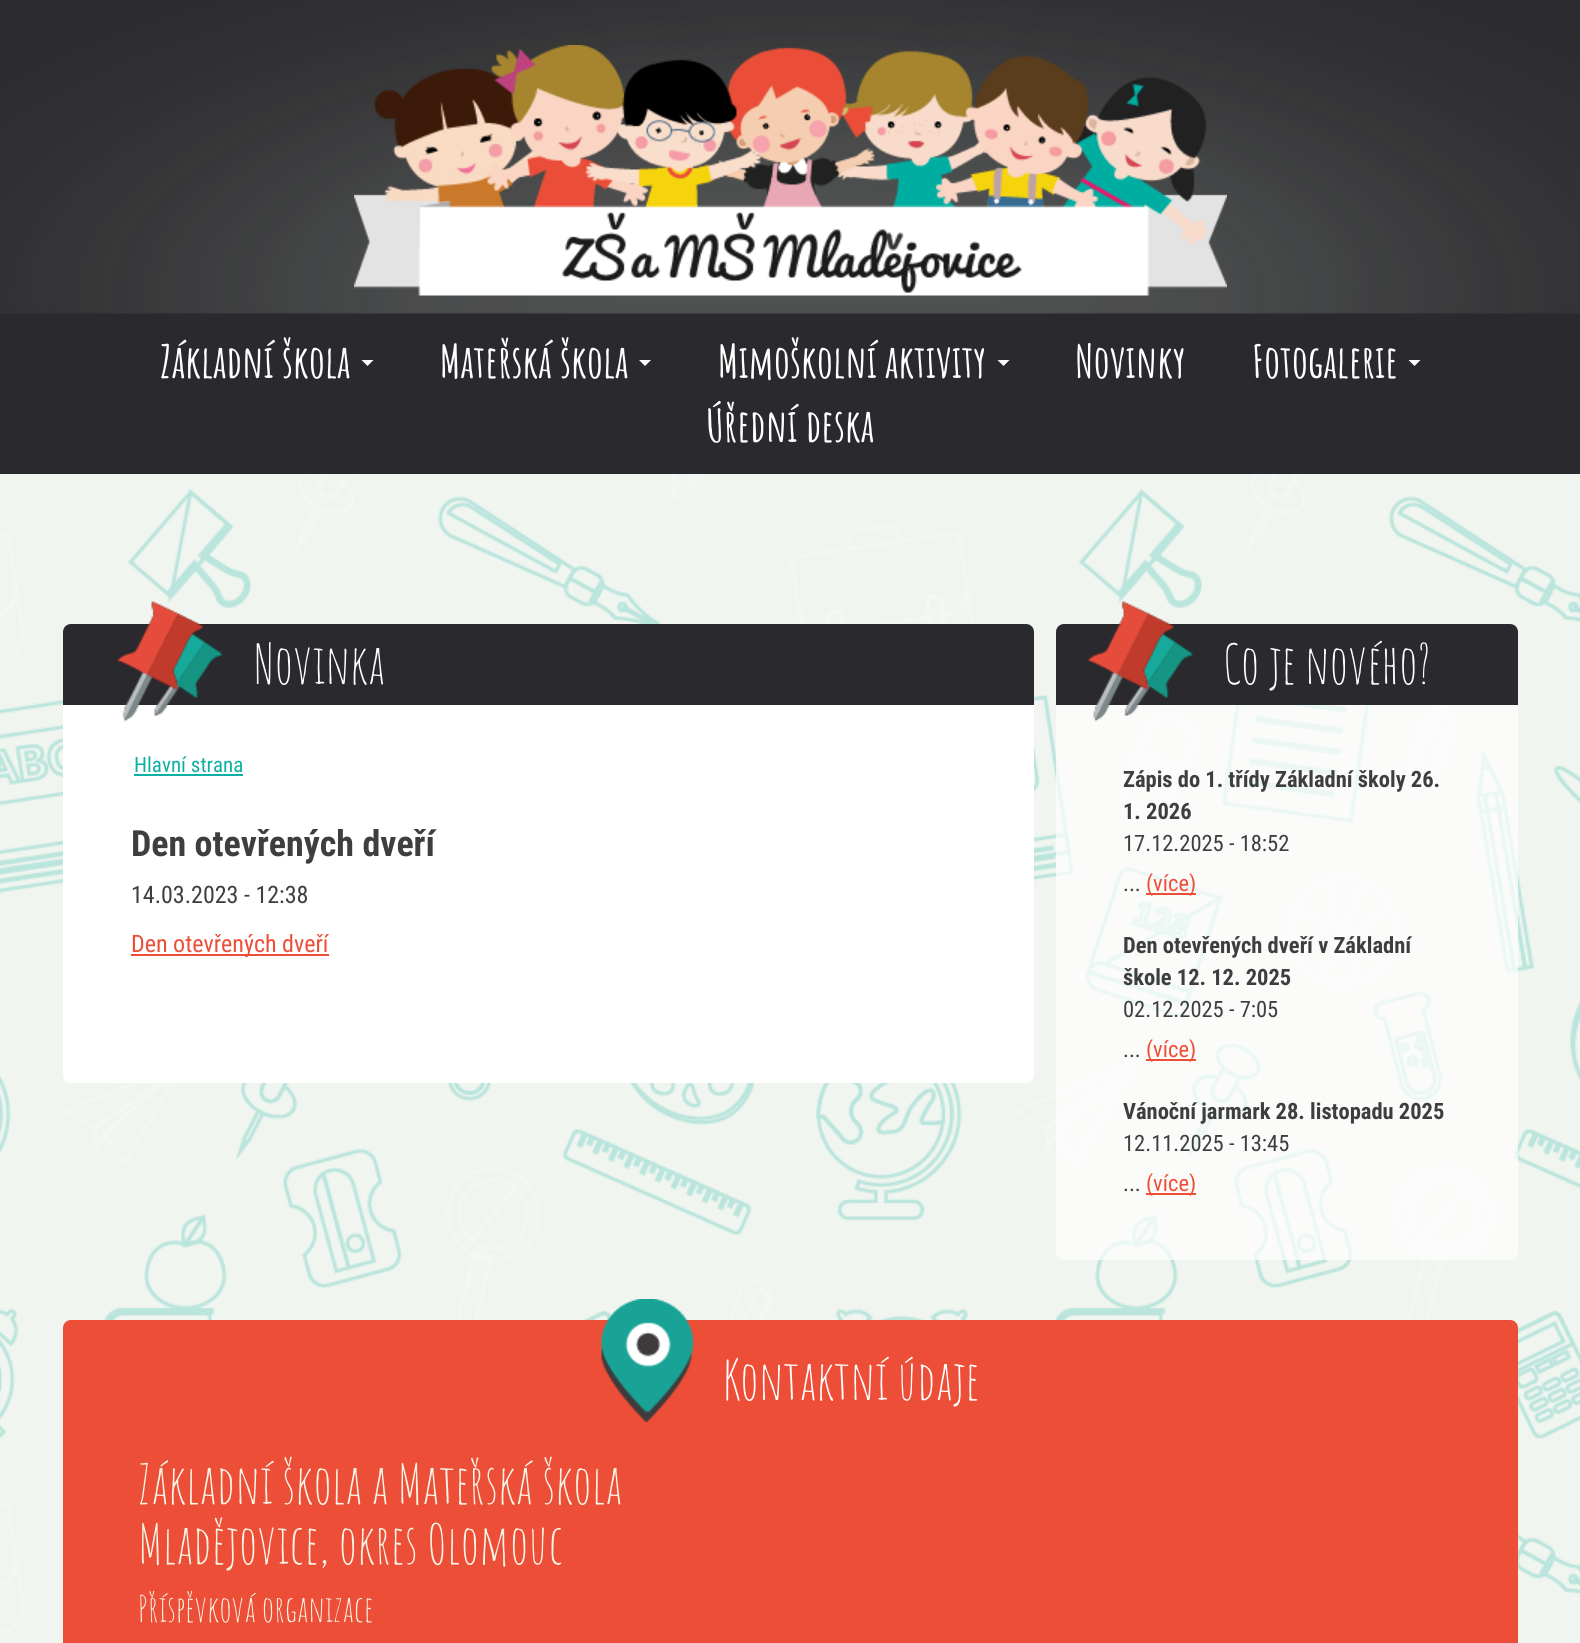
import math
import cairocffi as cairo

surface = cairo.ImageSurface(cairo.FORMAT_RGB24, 1580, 1643)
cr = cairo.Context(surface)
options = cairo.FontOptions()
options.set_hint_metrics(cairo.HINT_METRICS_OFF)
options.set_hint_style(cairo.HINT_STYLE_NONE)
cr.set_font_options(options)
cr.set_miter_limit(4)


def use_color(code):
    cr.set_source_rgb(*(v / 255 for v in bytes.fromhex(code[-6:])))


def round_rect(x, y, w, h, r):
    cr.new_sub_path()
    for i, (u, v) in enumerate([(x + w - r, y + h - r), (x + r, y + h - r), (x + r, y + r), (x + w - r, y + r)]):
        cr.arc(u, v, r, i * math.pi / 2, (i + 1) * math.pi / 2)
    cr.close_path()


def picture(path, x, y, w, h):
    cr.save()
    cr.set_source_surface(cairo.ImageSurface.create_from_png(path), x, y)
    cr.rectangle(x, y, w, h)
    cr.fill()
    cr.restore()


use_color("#ffffff")
cr.paint()
picture("img1.png", 0, 474, 1580, 1169)
use_color("#2a292d")
cr.rectangle(0, 0, 1580, 474)
cr.fill()
picture("img2.png", 0, 0, 1580, 314)
picture("img3.png", 354, 45, 873, 251)
cr.select_font_face("Amatic SC", cairo.FONT_SLANT_NORMAL, cairo.FONT_WEIGHT_BOLD)
cr.set_font_size(45)
use_color("#ffffff")
cr.move_to(160, 378)
cr.show_text("Základní škola")
cr.new_path()
cr.move_to(361.5, 360)
cr.line_to(373.5, 360)
cr.line_to(367.5, 366)
cr.close_path()
cr.fill()
cr.move_to(440, 378)
cr.show_text("Mateřská škola")
cr.new_path()
cr.move_to(639, 360)
cr.line_to(651, 360)
cr.line_to(645, 366)
cr.close_path()
cr.fill()
cr.move_to(718, 378)
cr.show_text("Mimoškolní aktivity")
cr.new_path()
cr.move_to(997.5, 360)
cr.line_to(1009.5, 360)
cr.line_to(1003.5, 366)
cr.close_path()
cr.fill()
cr.move_to(1075, 378)
cr.show_text("Novinky")
cr.move_to(1252, 378)
cr.show_text("Fotogalerie")
cr.new_path()
cr.move_to(1408.5, 360)
cr.line_to(1420.5, 360)
cr.line_to(1414.5, 366)
cr.close_path()
cr.fill()
cr.move_to(706, 442)
cr.show_text("Úřední deska")
round_rect(63, 624, 971, 459, 8)
cr.fill()
use_color("#2a292d")
cr.new_path()
cr.move_to(71, 624)
cr.line_to(1026, 624)
cr.curve_to(1030.5, 624, 1034, 627.5, 1034, 632)
cr.line_to(1034, 705)
cr.line_to(63, 705)
cr.line_to(63, 632)
cr.curve_to(63, 627.5, 66.5, 624, 71, 624)
cr.close_path()
cr.fill()
picture("img4.png", 116, 601, 107, 121)
cr.select_font_face("Amatic SC")
cr.set_font_size(54)
use_color("#ffffff")
cr.move_to(254, 684)
cr.show_text("Novinka")
cr.select_font_face("Roboto Condensed")
cr.set_font_size(21)
use_color("#0fb0a4")
cr.move_to(134, 772)
cr.show_text("Hlavní strana")
cr.rectangle(134, 774, 109, 2)
cr.fill()
cr.select_font_face("Roboto Condensed", cairo.FONT_SLANT_NORMAL, cairo.FONT_WEIGHT_BOLD)
cr.set_font_size(36)
use_color("#3e3e3e")
cr.move_to(131, 856)
cr.show_text("Den otevřených dveří")
cr.select_font_face("Roboto Condensed")
cr.set_font_size(24)
cr.move_to(131, 903)
cr.show_text("14.03.2023 - 12:38")
use_color("#ed4e38")
cr.rectangle(131, 954, 198, 2)
cr.fill()
cr.move_to(131, 952)
cr.show_text("Den otevřených dveří")
cr.set_source_rgba(1, 1, 1, 0.7)
round_rect(1056, 624, 462, 636, 8)
cr.fill()
use_color("#2a292d")
cr.new_path()
cr.move_to(1064, 624)
cr.line_to(1510, 624)
cr.curve_to(1514.5, 624, 1518, 627.5, 1518, 632)
cr.line_to(1518, 705)
cr.line_to(1056, 705)
cr.line_to(1056, 632)
cr.curve_to(1056, 627.5, 1059.5, 624, 1064, 624)
cr.close_path()
cr.fill()
picture("img5.png", 1087, 601, 106, 121)
cr.select_font_face("Amatic SC")
cr.set_font_size(54)
use_color("#ffffff")
cr.move_to(1223, 684)
cr.show_text("Co je nového?")
cr.select_font_face("Roboto Condensed", cairo.FONT_SLANT_NORMAL, cairo.FONT_WEIGHT_BOLD)
cr.set_font_size(22.5)
use_color("#3e3e3e")
cr.move_to(1123, 787)
cr.show_text("Zápis do 1. třídy Základní školy 26.")
cr.move_to(1123, 819)
cr.show_text("1. 2026")
cr.select_font_face("Roboto Condensed")
cr.move_to(1123, 851)
cr.show_text("17.12.2025 - 18:52")
cr.move_to(1123, 891)
cr.show_text("...")
use_color("#ed4e38")
cr.rectangle(1146, 893, 50, 2)
cr.fill()
cr.move_to(1146, 891)
cr.show_text("(více)")
cr.select_font_face("Roboto Condensed", cairo.FONT_SLANT_NORMAL, cairo.FONT_WEIGHT_BOLD)
use_color("#3e3e3e")
cr.move_to(1123, 953)
cr.show_text("Den otevřených dveří v Základní")
cr.move_to(1123, 985)
cr.show_text("škole 12. 12. 2025")
cr.select_font_face("Roboto Condensed")
cr.move_to(1123, 1017)
cr.show_text("02.12.2025 - 7:05")
cr.move_to(1123, 1057)
cr.show_text("...")
use_color("#ed4e38")
cr.rectangle(1146, 1059, 50, 2)
cr.fill()
cr.move_to(1146, 1057)
cr.show_text("(více)")
cr.select_font_face("Roboto Condensed", cairo.FONT_SLANT_NORMAL, cairo.FONT_WEIGHT_BOLD)
use_color("#3e3e3e")
cr.move_to(1123, 1119)
cr.show_text("Vánoční jarmark 28. listopadu 2025")
cr.select_font_face("Roboto Condensed")
cr.move_to(1123, 1151)
cr.show_text("12.11.2025 - 13:45")
cr.move_to(1123, 1191)
cr.show_text("...")
use_color("#ed4e38")
cr.rectangle(1146, 1193, 50, 2)
cr.fill()
cr.move_to(1146, 1191)
cr.show_text("(více)")
cr.new_path()
cr.move_to(71, 1320)
cr.line_to(1510, 1320)
cr.curve_to(1514.5, 1320, 1518, 1323.5, 1518, 1328)
cr.line_to(1518, 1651)
cr.line_to(63, 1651)
cr.line_to(63, 1328)
cr.curve_to(63, 1323.5, 66.5, 1320, 71, 1320)
cr.close_path()
cr.fill()
picture("img6.png", 601, 1299, 92, 123)
cr.select_font_face("Amatic SC")
cr.set_font_size(54)
use_color("#ffffff")
cr.move_to(723, 1400)
cr.show_text("Kontaktní údaje")
use_color("#f7f6e6")
cr.move_to(138, 1504)
cr.show_text("Základní škola a Mateřská škola")
cr.move_to(138, 1564)
cr.show_text("Mladějovice, okres Olomouc")
cr.set_font_size(36)
cr.move_to(138, 1622)
cr.show_text("Příspěvková organizace")
surface.write_to_png("result.png")
